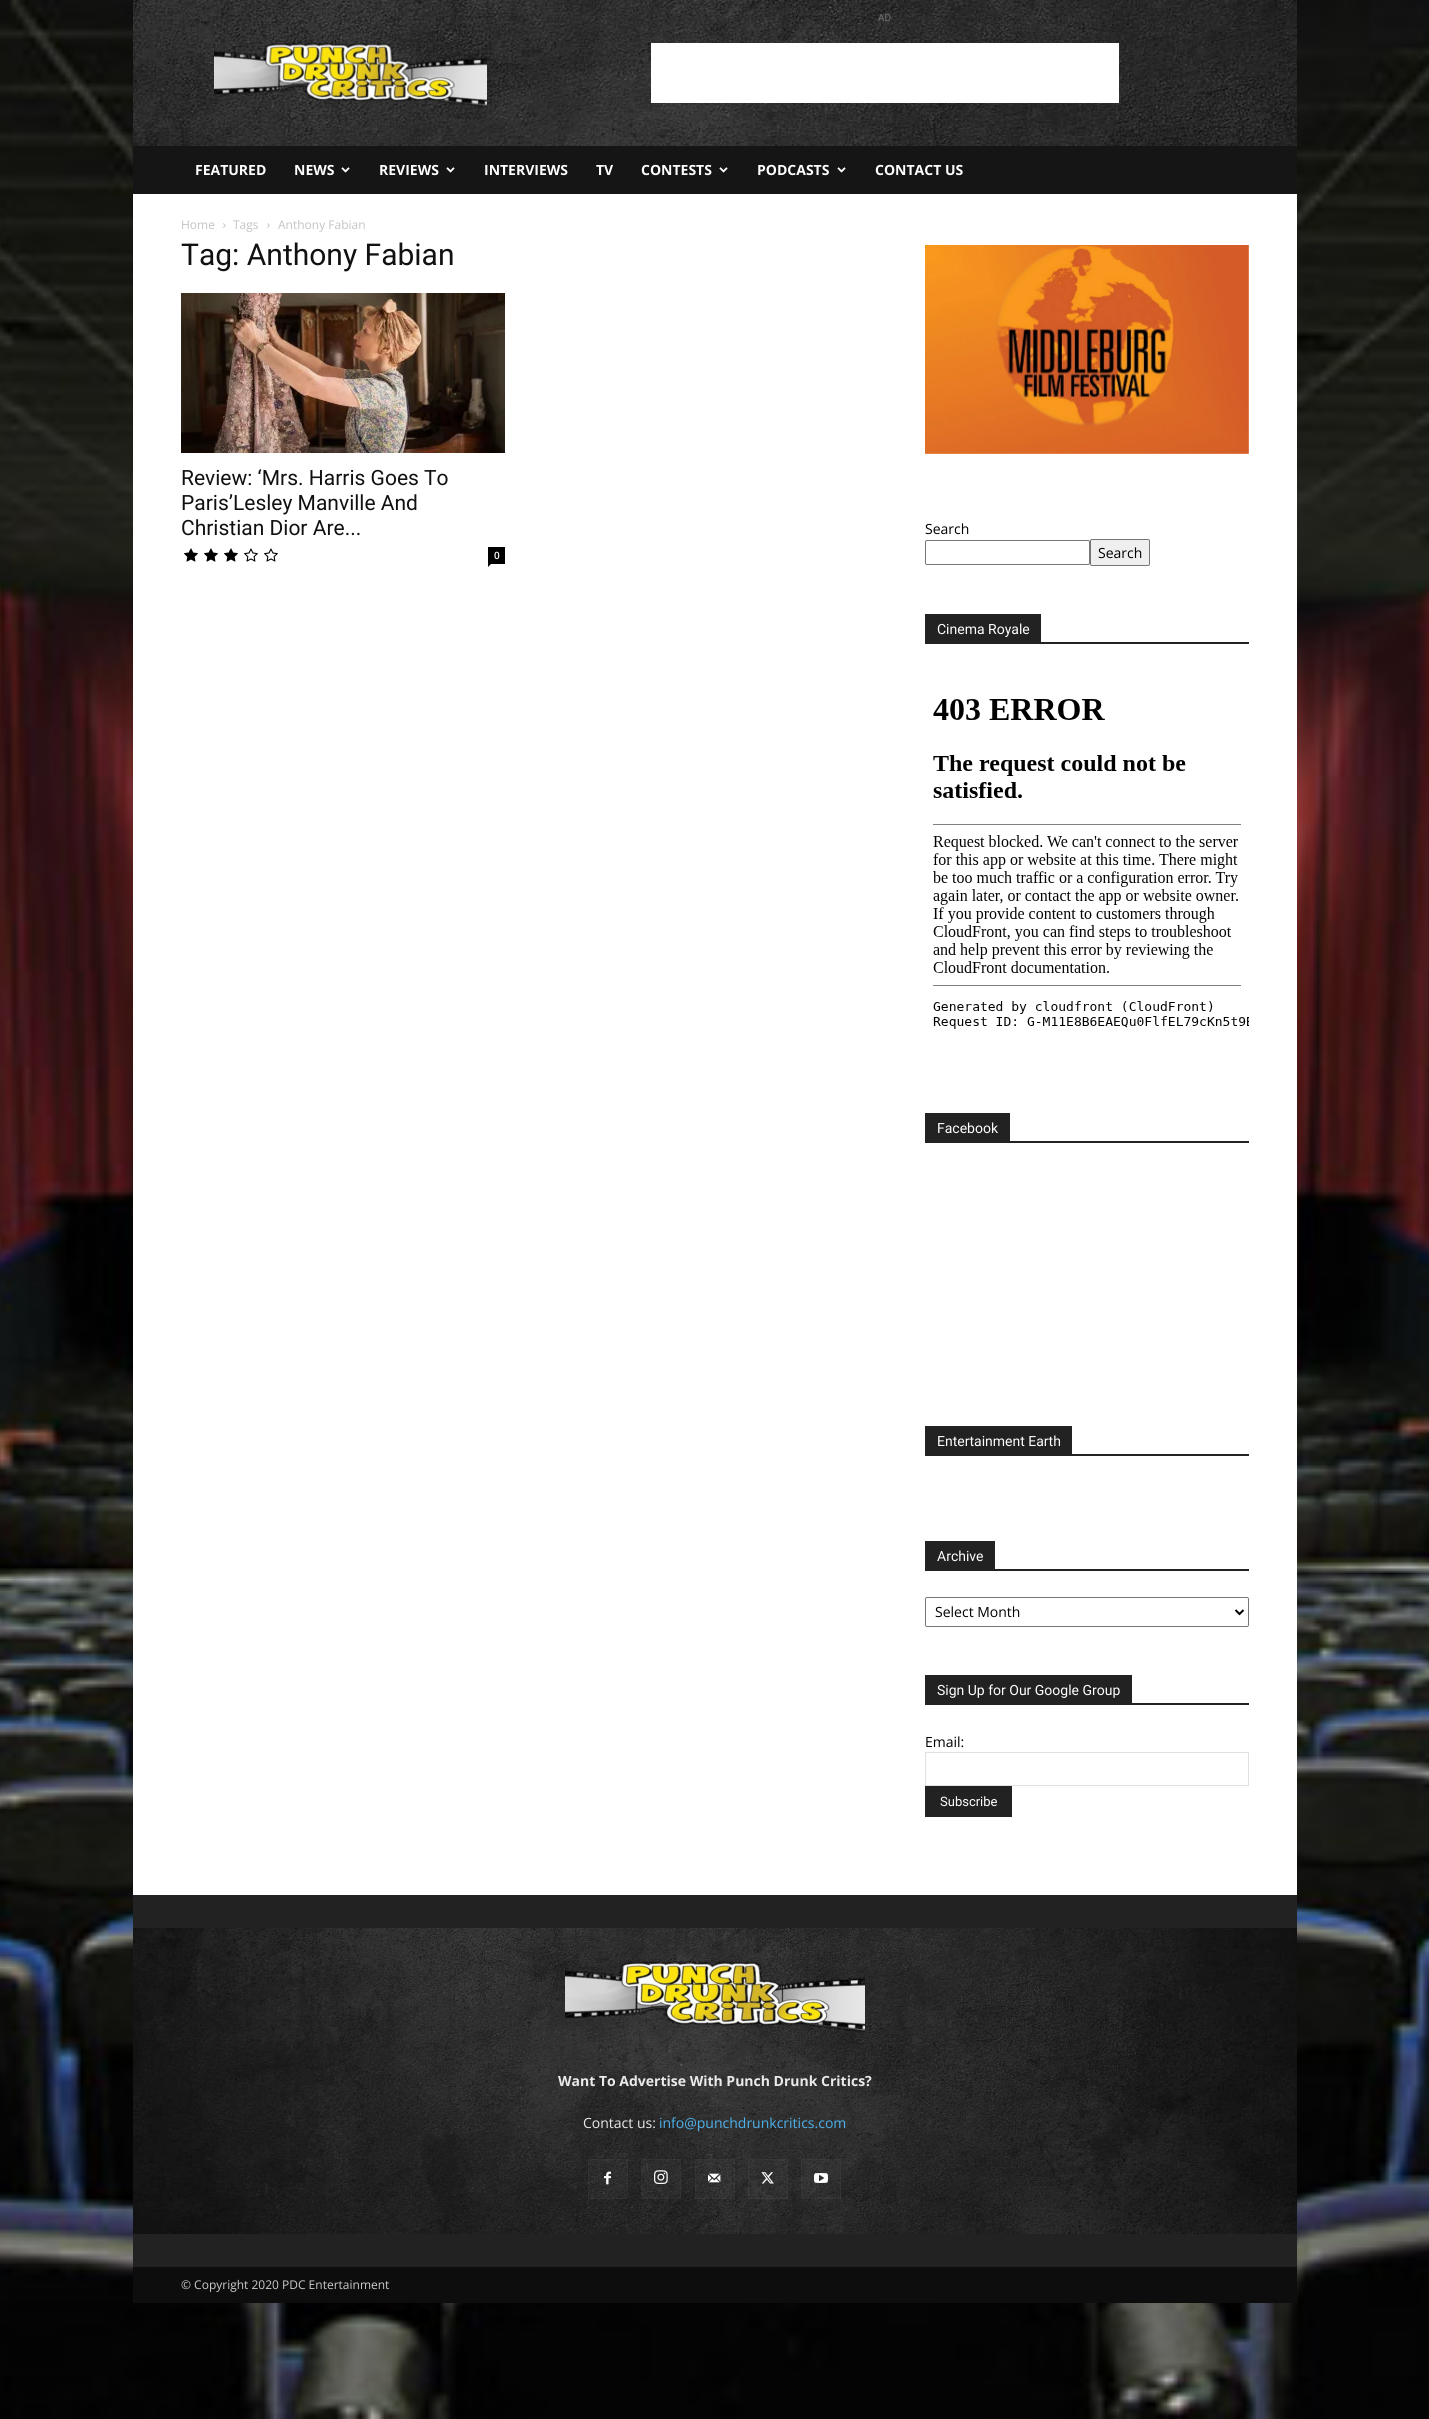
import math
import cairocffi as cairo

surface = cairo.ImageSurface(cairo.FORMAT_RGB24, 1429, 2419)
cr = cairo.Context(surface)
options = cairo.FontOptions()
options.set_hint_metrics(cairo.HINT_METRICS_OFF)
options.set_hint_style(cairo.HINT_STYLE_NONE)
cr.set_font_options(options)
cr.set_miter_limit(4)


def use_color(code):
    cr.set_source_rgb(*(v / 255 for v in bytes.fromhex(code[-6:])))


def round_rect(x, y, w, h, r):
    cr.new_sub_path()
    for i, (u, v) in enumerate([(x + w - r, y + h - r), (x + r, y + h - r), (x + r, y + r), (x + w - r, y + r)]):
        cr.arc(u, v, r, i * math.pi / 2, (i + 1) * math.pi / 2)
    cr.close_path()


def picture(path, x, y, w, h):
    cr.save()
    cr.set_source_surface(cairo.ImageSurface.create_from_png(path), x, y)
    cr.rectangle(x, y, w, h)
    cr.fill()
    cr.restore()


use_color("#ffffff")
cr.paint()
picture("img1.png", 0, 0, 1429, 2419)
picture("img2.png", 133, 0, 1164, 146)
cr.select_font_face("Roboto")
cr.set_font_size(10)
use_color("#767676")
cr.move_to(878, 21)
cr.show_text("AD")
use_color("#ffffff")
cr.rectangle(651, 43, 468, 60)
cr.fill()
picture("img3.png", 214, 42, 273, 65)
use_color("#151515")
cr.rectangle(133, 146, 1164, 48)
cr.fill()
cr.select_font_face("Open Sans", cairo.FONT_SLANT_NORMAL, cairo.FONT_WEIGHT_BOLD)
cr.set_font_size(14)
use_color("#ffffff")
cr.move_to(195, 175)
cr.show_text("FEATURED")
cr.move_to(294, 175)
cr.show_text("NEWS")
picture("img4.png", 341, 167, 9, 6)
cr.move_to(379, 175)
cr.show_text("REVIEWS")
picture("img4.png", 446, 167, 9, 6)
cr.move_to(484, 175)
cr.show_text("INTERVIEWS")
cr.move_to(596, 175)
cr.show_text("TV")
cr.move_to(641, 175)
cr.show_text("CONTESTS")
picture("img4.png", 719, 167, 9, 6)
cr.move_to(757, 175)
cr.show_text("PODCASTS")
picture("img4.png", 837, 167, 9, 6)
cr.move_to(875, 175)
cr.show_text("CONTACT US")
cr.rectangle(133, 194, 1164, 1701)
cr.fill()
cr.select_font_face("Open Sans")
cr.set_font_size(12)
use_color("#c3c3c3")
cr.move_to(181, 229)
cr.show_text("Home")
picture("img5.png", 223, 223, 3, 5)
cr.move_to(233, 229)
cr.show_text("Tags")
picture("img5.png", 267, 223, 3, 5)
cr.move_to(278, 229)
cr.show_text("Anthony Fabian")
cr.select_font_face("Roboto")
cr.set_font_size(30)
use_color("#111111")
cr.move_to(181, 265)
cr.show_text("Tag: Anthony Fabian")
picture("img6.png", 181, 293, 324, 160)
cr.set_font_size(21)
cr.move_to(181, 485)
cr.show_text("Review: ‘Mrs. Harris Goes To")
cr.move_to(181, 510)
cr.show_text("Paris’Lesley Manville And")
cr.move_to(181, 535)
cr.show_text("Christian Dior Are...")
picture("img7.png", 184, 548, 14, 14)
picture("img7.png", 204, 548, 14, 14)
picture("img7.png", 224, 548, 14, 14)
picture("img8.png", 244, 548, 14, 14)
picture("img8.png", 264, 548, 14, 14)
use_color("#000000")
cr.rectangle(488, 547, 17, 17)
cr.fill()
cr.select_font_face("Open Sans SemiBold")
cr.set_font_size(10)
use_color("#ffffff")
cr.move_to(494, 559)
cr.show_text("0")
use_color("#000000")
cr.new_path()
cr.move_to(488, 564)
cr.line_to(491, 564)
cr.line_to(488, 567)
cr.close_path()
cr.fill()
picture("img9.png", 925, 245, 324, 209)
cr.select_font_face("Open Sans")
cr.set_font_size(14)
cr.move_to(925, 534)
cr.show_text("Search")
round_rect(925.5, 540.5, 164, 24, 1.5)
use_color("#767676")
cr.set_line_width(1)
cr.stroke()
use_color("#efefef")
round_rect(1090.5, 539.5, 59, 26, 1.5)
cr.fill_preserve()
use_color("#767676")
cr.stroke()
use_color("#000000")
cr.move_to(1098, 558)
cr.show_text("Search")
use_color("#222222")
cr.rectangle(925, 642, 324, 2)
cr.fill()
cr.rectangle(925, 614, 116, 28)
cr.fill()
cr.select_font_face("Roboto")
use_color("#ffffff")
cr.move_to(937, 634)
cr.show_text("Cinema Royale")
picture("img10.png", 933, 699, 316, 330)
use_color("#222222")
cr.rectangle(925, 1141, 324, 2)
cr.fill()
cr.rectangle(925, 1113, 85, 28)
cr.fill()
use_color("#ffffff")
cr.move_to(937, 1133)
cr.show_text("Facebook")
use_color("#222222")
cr.rectangle(925, 1454, 324, 2)
cr.fill()
cr.rectangle(925, 1426, 147, 28)
cr.fill()
use_color("#ffffff")
cr.move_to(937, 1446)
cr.show_text("Entertainment Earth")
use_color("#222222")
cr.rectangle(925, 1569, 324, 2)
cr.fill()
cr.rectangle(925, 1541, 70, 28)
cr.fill()
use_color("#ffffff")
cr.move_to(937, 1561)
cr.show_text("Archive")
round_rect(925.5, 1597.5, 323, 29, 1.5)
use_color("#767676")
cr.stroke()
cr.new_path()
cr.move_to(1235.5, 1610)
cr.line_to(1239.5, 1614)
cr.line_to(1243.5, 1610)
use_color("#000000")
cr.set_line_width(2)
cr.stroke()
cr.select_font_face("Open Sans")
cr.move_to(935, 1617)
cr.show_text("Select Month")
use_color("#222222")
cr.rectangle(925, 1703, 324, 2)
cr.fill()
cr.rectangle(925, 1675, 207, 28)
cr.fill()
cr.select_font_face("Roboto")
use_color("#ffffff")
cr.move_to(937, 1695)
cr.show_text("Sign Up for Our Google Group")
cr.select_font_face("Open Sans")
use_color("#000000")
cr.move_to(925, 1747)
cr.show_text("Email:")
cr.rectangle(925.5, 1752.5, 323, 33)
use_color("#e1e1e1")
cr.set_line_width(1)
cr.stroke()
use_color("#222222")
cr.rectangle(925, 1786, 87, 31)
cr.fill()
cr.select_font_face("Roboto")
cr.set_font_size(13)
use_color("#ffffff")
cr.move_to(940, 1806)
cr.show_text("Subscribe")
use_color("#222222")
cr.rectangle(133, 1895, 1164, 372)
cr.fill()
picture("img11.png", 133, 1928, 1164, 306)
picture("img12.png", 565, 1960, 300, 72)
cr.select_font_face("Open Sans", cairo.FONT_SLANT_NORMAL, cairo.FONT_WEIGHT_BOLD)
cr.set_font_size(14)
use_color("#eaeaea")
cr.move_to(558, 2086)
cr.show_text("Want To Advertise With Punch Drunk Critics?")
cr.select_font_face("Open Sans")
cr.move_to(583, 2128)
cr.show_text("Contact us:")
use_color("#4db2ec")
cr.move_to(659, 2128)
cr.show_text("info@punchdrunkcritics.com")
cr.set_source_rgba(1, 1, 1, 0.03)
cr.rectangle(588, 2159, 40, 40)
cr.fill()
picture("img13.png", 604, 2171, 7, 14)
cr.rectangle(588.5, 2159.5, 39, 39)
cr.stroke()
cr.rectangle(641, 2159, 40, 40)
cr.fill()
picture("img14.png", 654, 2170, 14, 14)
cr.rectangle(641.5, 2159.5, 39, 39)
cr.stroke()
cr.rectangle(695, 2159, 40, 40)
cr.fill()
picture("img15.png", 708, 2173, 13, 10)
cr.rectangle(695.5, 2159.5, 39, 39)
cr.stroke()
cr.rectangle(748, 2159, 40, 40)
cr.fill()
picture("img16.png", 761, 2172, 13, 12)
cr.rectangle(748.5, 2159.5, 39, 39)
cr.stroke()
cr.rectangle(801, 2159, 40, 40)
cr.fill()
picture("img17.png", 814, 2173, 14, 10)
cr.rectangle(801.5, 2159.5, 39, 39)
cr.stroke()
use_color("#0d0d0d")
cr.rectangle(133, 2267, 1164, 36)
cr.fill()
cr.set_font_size(12)
use_color("#cccccc")
cr.move_to(181, 2289)
cr.show_text("© Copyright 2020 PDC Entertainment")
surface.write_to_png("result.png")
